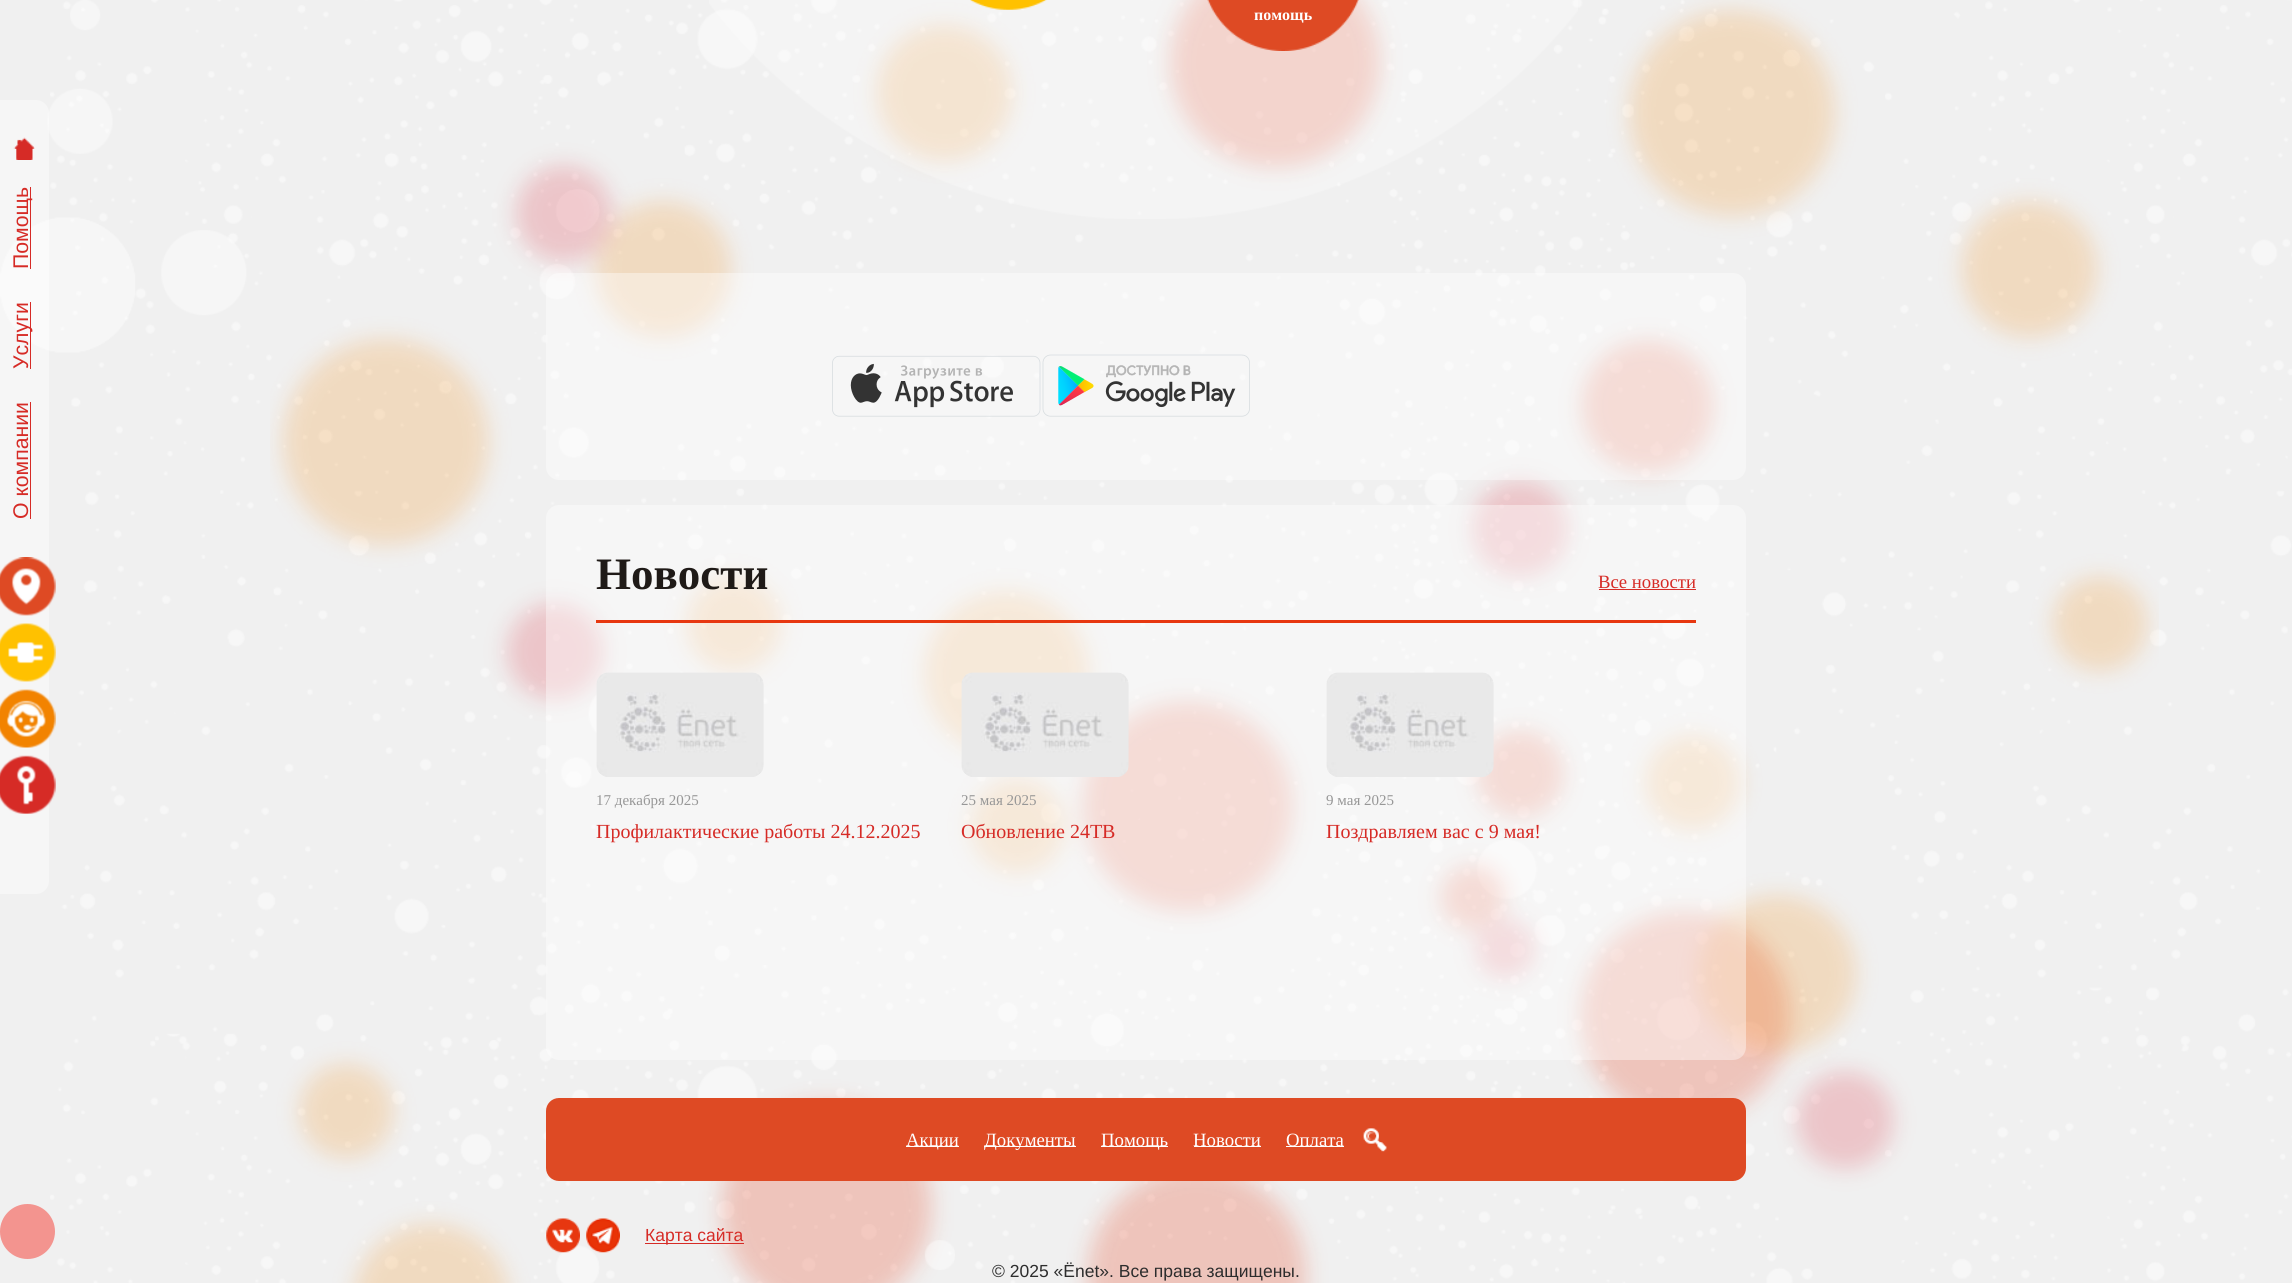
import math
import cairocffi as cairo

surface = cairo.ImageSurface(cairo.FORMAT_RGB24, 2292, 1283)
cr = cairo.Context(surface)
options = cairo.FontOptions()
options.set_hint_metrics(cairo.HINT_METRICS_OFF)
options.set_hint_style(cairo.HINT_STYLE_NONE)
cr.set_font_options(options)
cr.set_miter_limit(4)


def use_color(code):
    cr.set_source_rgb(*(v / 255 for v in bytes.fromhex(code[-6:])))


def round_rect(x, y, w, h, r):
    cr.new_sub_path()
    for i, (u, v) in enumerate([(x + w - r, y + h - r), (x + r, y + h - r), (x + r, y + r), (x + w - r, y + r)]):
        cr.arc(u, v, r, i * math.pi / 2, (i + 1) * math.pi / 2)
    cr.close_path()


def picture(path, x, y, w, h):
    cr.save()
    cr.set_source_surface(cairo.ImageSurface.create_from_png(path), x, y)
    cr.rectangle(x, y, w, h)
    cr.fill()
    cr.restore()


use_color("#f0f0f0")
cr.paint()
picture("img2.png", 50, 0, 2242, 1283)
picture("img3.png", 270, 0, 1889, 1283)
picture("img1.png", 0, 0, 955, 1270)
picture("img4.png", 709, 0, 869, 219)
picture("img5.png", 970, 0, 77, 10)
picture("img6.png", 1207, 0, 152, 51)
cr.select_font_face("Liberation Serif", cairo.FONT_SLANT_NORMAL, cairo.FONT_WEIGHT_BOLD)
cr.set_font_size(16)
use_color("#ffffff")
cr.move_to(1254, 20)
cr.show_text("помощь")
cr.set_source_rgba(1, 1, 1, 0.4)
cr.new_path()
cr.move_to(0, 100)
cr.line_to(36, 100)
cr.curve_to(43, 100, 49, 106, 49, 113)
cr.line_to(49, 881)
cr.curve_to(49, 888, 43, 894, 36, 894)
cr.line_to(0, 894)
cr.close_path()
cr.fill()
picture("img7.png", 13, 137, 22, 23)
use_color("#d62b26")
cr.rectangle(30, 187, 1, 82)
cr.fill()
cr.select_font_face("Liberation Sans")
cr.set_font_size(21.25)
cr.save()
cr.translate(28, 269)
cr.rotate(-90 * math.pi / 180)
cr.move_to(0, 0)
cr.show_text("Помощь")
cr.restore()
cr.rectangle(30, 302, 1, 67)
cr.fill()
cr.save()
cr.translate(28, 369)
cr.rotate(-90 * math.pi / 180)
cr.move_to(0, 0)
cr.show_text("Услуги")
cr.restore()
cr.save()
cr.translate(28, 519)
cr.rotate(-90 * math.pi / 180)
cr.move_to(0, 0)
cr.show_text("О компании")
cr.restore()
cr.rectangle(30, 402, 1, 117)
cr.fill()
picture("img8.png", 0, 557, 56, 59)
picture("img9.png", 0, 623, 56, 59)
picture("img10.png", 0, 689, 56, 59)
picture("img11.png", 0, 755, 56, 59)
cr.set_source_rgba(1, 1, 1, 0.4)
round_rect(546, 273, 1200, 207, 13)
cr.fill()
picture("img12.png", 832, 355, 209, 62)
picture("img13.png", 1042, 354, 208, 63)
round_rect(546, 505, 1200, 555, 13)
cr.fill()
cr.select_font_face("Liberation Serif", cairo.FONT_SLANT_NORMAL, cairo.FONT_WEIGHT_BOLD)
cr.set_font_size(45)
use_color("#1f1a17")
cr.move_to(596, 589)
cr.show_text("Новости")
use_color("#e73710")
cr.rectangle(596, 620, 1100, 3)
cr.fill()
cr.select_font_face("Liberation Serif")
cr.set_font_size(18.75)
use_color("#d62b26")
cr.move_to(1598, 588)
cr.show_text("Все новости")
cr.rectangle(1599, 589, 97, 1)
cr.fill()
picture("img14.png", 596, 672, 168, 105)
cr.set_font_size(15)
use_color("#979797")
cr.move_to(596, 805)
cr.show_text("17 декабря 2025")
cr.set_font_size(20)
use_color("#d62b26")
cr.move_to(596, 838)
cr.show_text("Профилактические работы 24.12.2025")
picture("img15.png", 961, 672, 168, 105)
cr.set_font_size(15)
use_color("#979797")
cr.move_to(961, 805)
cr.show_text("25 мая 2025")
cr.set_font_size(20)
use_color("#d62b26")
cr.move_to(961, 838)
cr.show_text("Обновление 24ТВ")
picture("img16.png", 1326, 672, 168, 105)
cr.set_font_size(15)
use_color("#979797")
cr.move_to(1326, 805)
cr.show_text("9 мая 2025")
cr.set_font_size(20)
use_color("#d62b26")
cr.move_to(1326, 838)
cr.show_text("Поздравляем вас с 9 мая!")
use_color("#de4a24")
round_rect(546, 1098, 1200, 83, 13)
cr.fill()
use_color("#ffffff")
cr.rectangle(906, 1146, 53, 1)
cr.fill()
cr.set_font_size(18.75)
cr.move_to(906, 1146)
cr.show_text("Акции")
cr.rectangle(984, 1146, 92, 1)
cr.fill()
cr.move_to(984, 1146)
cr.show_text("Документы")
cr.rectangle(1101, 1146, 67, 1)
cr.fill()
cr.move_to(1101, 1146)
cr.show_text("Помощь")
cr.rectangle(1194, 1146, 67, 1)
cr.fill()
cr.move_to(1193, 1146)
cr.show_text("Новости")
cr.rectangle(1286, 1146, 58, 1)
cr.fill()
cr.move_to(1286, 1146)
cr.show_text("Оплата")
picture("img17.png", 1363, 1128, 24, 24)
picture("img18.png", 1363, 1128, 24, 24)
use_color("#f3948f")
cr.arc(27.5, 1231.5, 27.5, 0, 2 * math.pi)
cr.fill()
picture("img19.png", 546, 1218, 34, 35)
picture("img20.png", 586, 1218, 34, 35)
use_color("#d62b26")
cr.rectangle(645, 1243, 99, 1)
cr.fill()
cr.select_font_face("Liberation Sans")
cr.set_font_size(17.5)
cr.move_to(645, 1241)
cr.show_text("Карта сайта")
use_color("#2d2d2d")
cr.move_to(992, 1277)
cr.show_text("© 2025 «Ёnet». Все права защищены.")
surface.write_to_png("result.png")
